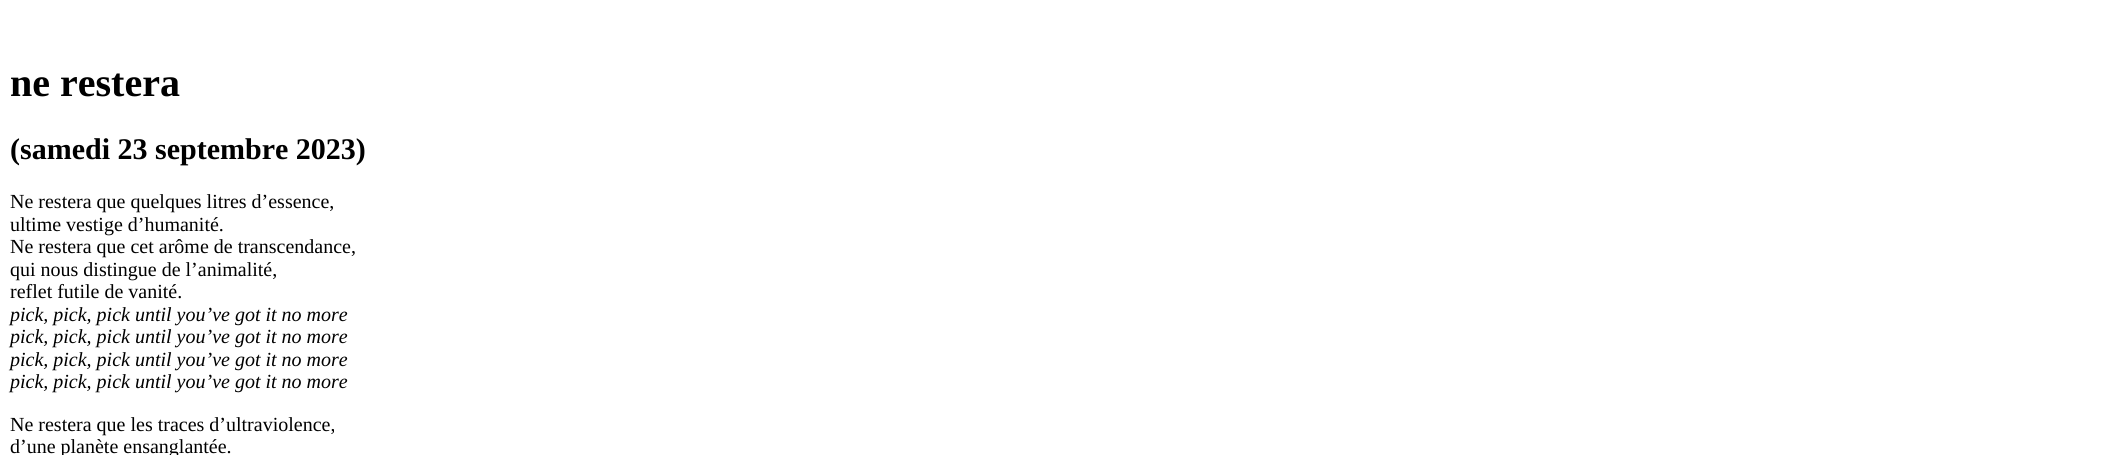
import math
import cairocffi as cairo

surface = cairo.ImageSurface(cairo.FORMAT_RGB24, 2109, 455)
cr = cairo.Context(surface)
options = cairo.FontOptions()
options.set_hint_metrics(cairo.HINT_METRICS_OFF)
options.set_hint_style(cairo.HINT_STYLE_NONE)
cr.set_font_options(options)
cr.set_miter_limit(4)


def use_color(code):
    cr.set_source_rgb(*(v / 255 for v in bytes.fromhex(code[-6:])))


use_color("#ffffff")
cr.paint()
cr.select_font_face("Liberation Serif", cairo.FONT_SLANT_NORMAL, cairo.FONT_WEIGHT_BOLD)
cr.set_font_size(40)
use_color("#000000")
cr.move_to(10, 96)
cr.show_text("ne restera")
cr.set_font_size(30)
cr.move_to(10, 159)
cr.show_text("(samedi 23 septembre 2023)")
cr.select_font_face("Liberation Serif")
cr.set_font_size(20)
cr.move_to(10, 208)
cr.show_text("Ne restera que quelques litres d’essence,")
cr.move_to(10, 231)
cr.show_text("ultime vestige d’humanité.")
cr.move_to(10, 253)
cr.show_text("Ne restera que cet arôme de transcendance,")
cr.move_to(10, 276)
cr.show_text("qui nous distingue de l’animalité,")
cr.move_to(10, 298)
cr.show_text("reflet futile de vanité.")
cr.select_font_face("Liberation Serif", cairo.FONT_SLANT_ITALIC)
cr.move_to(10, 321)
cr.show_text("pick, pick, pick until you’ve got it no more")
cr.move_to(10, 343)
cr.show_text("pick, pick, pick until you’ve got it no more")
cr.move_to(10, 366)
cr.show_text("pick, pick, pick until you’ve got it no more")
cr.move_to(10, 388)
cr.show_text("pick, pick, pick until you’ve got it no more")
cr.select_font_face("Liberation Serif")
cr.move_to(10, 431)
cr.show_text("Ne restera que les traces d’ultraviolence,")
cr.move_to(10, 453)
cr.show_text("d’une planète ensanglantée.")
surface.write_to_png("result.png")
